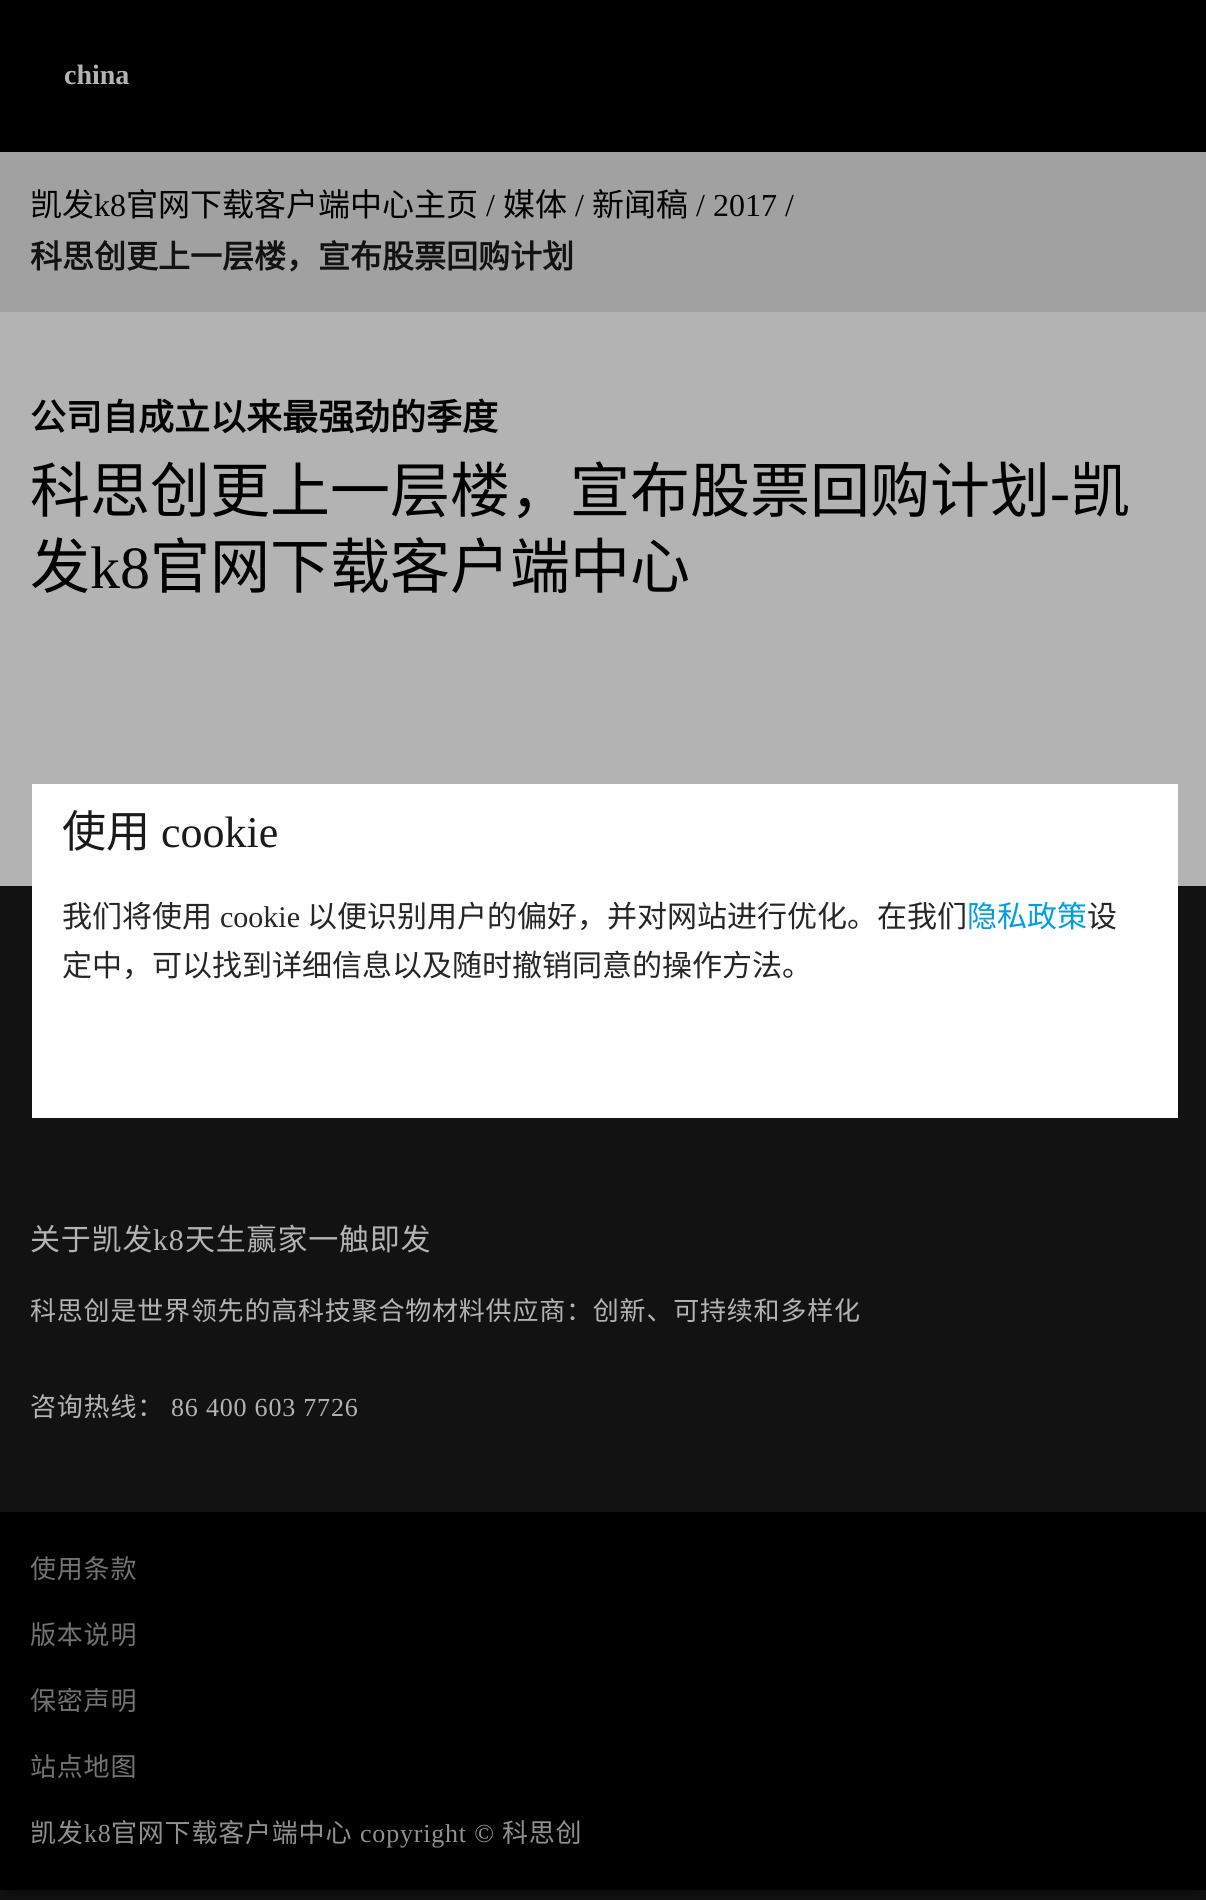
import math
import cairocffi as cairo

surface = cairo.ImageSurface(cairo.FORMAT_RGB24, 1206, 1900)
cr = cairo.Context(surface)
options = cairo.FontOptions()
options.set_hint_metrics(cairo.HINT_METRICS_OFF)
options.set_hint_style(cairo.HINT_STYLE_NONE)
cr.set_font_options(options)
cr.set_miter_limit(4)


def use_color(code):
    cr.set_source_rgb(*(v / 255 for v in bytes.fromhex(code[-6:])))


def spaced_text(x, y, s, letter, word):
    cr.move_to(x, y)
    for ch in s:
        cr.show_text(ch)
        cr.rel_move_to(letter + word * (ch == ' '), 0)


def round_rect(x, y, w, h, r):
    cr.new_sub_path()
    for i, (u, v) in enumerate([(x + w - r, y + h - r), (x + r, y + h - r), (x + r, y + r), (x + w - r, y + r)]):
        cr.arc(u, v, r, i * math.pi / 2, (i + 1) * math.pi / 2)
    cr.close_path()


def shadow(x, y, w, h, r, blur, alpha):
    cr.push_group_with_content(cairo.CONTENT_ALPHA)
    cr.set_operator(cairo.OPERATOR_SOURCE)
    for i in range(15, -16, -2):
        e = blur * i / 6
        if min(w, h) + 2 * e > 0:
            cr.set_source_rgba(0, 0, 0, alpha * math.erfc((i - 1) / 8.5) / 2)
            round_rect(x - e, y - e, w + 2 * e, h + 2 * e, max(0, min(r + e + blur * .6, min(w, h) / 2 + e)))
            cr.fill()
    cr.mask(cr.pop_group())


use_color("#1a1a1a")
cr.paint()
use_color("#000000")
shadow(0, 0, 1206, 1890, 0, 30, 1)
use_color("#a1a1a1")
cr.rectangle(0, 152, 1206, 160)
cr.fill()
use_color("#000000")
cr.rectangle(0, 0, 1206, 152)
cr.fill()
cr.select_font_face("Liberation Serif", cairo.FONT_SLANT_NORMAL, cairo.FONT_WEIGHT_BOLD)
cr.set_font_size(28)
use_color("#b3b3b3")
cr.move_to(64, 84)
cr.show_text("china")
cr.select_font_face("Noto Sans CJK SC")
cr.set_font_size(32)
use_color("#000000")
cr.move_to(30, 216)
cr.show_text("凯发")
cr.select_font_face("Liberation Serif")
cr.move_to(94, 216)
cr.show_text("k8")
cr.select_font_face("Noto Sans CJK SC")
cr.move_to(126, 216)
cr.show_text("官网下载客户端中心主页")
cr.select_font_face("Liberation Serif")
cr.move_to(486, 216)
cr.show_text("/")
cr.select_font_face("Noto Sans CJK SC")
cr.move_to(503, 216)
cr.show_text("媒体")
cr.select_font_face("Liberation Serif")
cr.move_to(575, 216)
cr.show_text("/")
cr.select_font_face("Noto Sans CJK SC")
cr.move_to(592, 216)
cr.show_text("新闻稿")
cr.select_font_face("Liberation Serif")
cr.move_to(696, 216)
cr.show_text("/ 2017 /")
cr.select_font_face("Noto Sans CJK SC", cairo.FONT_SLANT_NORMAL, cairo.FONT_WEIGHT_BOLD)
use_color("#121212")
cr.move_to(30, 268)
cr.show_text("科思创更上一层楼，宣布股票回购计划")
use_color("#b3b3b3")
cr.rectangle(0, 312, 1206, 574)
cr.fill()
cr.set_font_size(36)
use_color("#000000")
cr.move_to(30, 430)
cr.show_text("公司自成立以来最强劲的季度")
cr.select_font_face("Noto Sans CJK SC")
cr.set_font_size(60)
cr.move_to(30, 512)
cr.show_text("科思创更上一层楼，宣布股票回购计划")
cr.select_font_face("Liberation Serif")
cr.move_to(1050, 512)
cr.show_text("-")
cr.select_font_face("Noto Sans CJK SC")
cr.move_to(1070, 512)
cr.show_text("凯")
cr.move_to(30, 588)
cr.show_text("发")
cr.select_font_face("Liberation Serif")
cr.move_to(90, 588)
cr.show_text("k8")
cr.select_font_face("Noto Sans CJK SC")
cr.move_to(150, 588)
cr.show_text("官网下载客户端中心")
use_color("#121212")
cr.rectangle(0, 886, 1206, 626)
cr.fill()
use_color("#ffffff")
cr.rectangle(32, 784, 1146, 334)
cr.fill()
cr.set_font_size(44)
use_color("#1a1a1a")
cr.move_to(62, 847)
cr.show_text("使用")
cr.select_font_face("Liberation Serif")
cr.move_to(161, 847)
cr.show_text("cookie")
cr.select_font_face("Noto Sans CJK SC")
cr.set_font_size(30)
use_color("#262626")
cr.move_to(62, 927)
cr.show_text("我们将使用")
cr.select_font_face("Liberation Serif")
cr.move_to(220, 927)
cr.show_text("cookie")
cr.select_font_face("Noto Sans CJK SC")
cr.move_to(307, 927)
cr.show_text("以便识别用户的偏好，并对网站进行优化。在我们")
use_color("#009fe4")
cr.move_to(967, 927)
cr.show_text("隐私政策")
use_color("#262626")
cr.move_to(1087, 927)
cr.show_text("设")
cr.move_to(62, 976)
cr.show_text("定中，可以找到详细信息以及随时撤销同意的操作方法。")
use_color("#b3b3b3")
spaced_text(30, 1250, "关于凯发", 0.8, 0)
cr.select_font_face("Liberation Serif")
spaced_text(153, 1250, "k8", 0.8, 0)
cr.select_font_face("Noto Sans CJK SC")
spaced_text(185, 1250, "天生赢家一触即发", 0.8, 0)
cr.set_font_size(26)
spaced_text(30, 1320, "科思创是世界领先的高科技聚合物材料供应商：创新、可持续和多样化", 0.8, 0)
spaced_text(30, 1416, "咨询热线：", 0.8, 0)
cr.select_font_face("Liberation Serif")
spaced_text(171, 1416, "86 400 603 7726", 0.8, 0)
use_color("#000000")
cr.rectangle(0, 1512, 1206, 378)
cr.fill()
cr.select_font_face("Noto Sans CJK SC")
use_color("#727272")
spaced_text(30, 1578, "使用条款", 0.8, 0)
spaced_text(30, 1644, "版本说明", 0.8, 0)
spaced_text(30, 1710, "保密声明", 0.8, 0)
spaced_text(30, 1776, "站点地图", 0.8, 0)
use_color("#8f8f8f")
spaced_text(30, 1842, "凯发", 0.8, 0)
cr.select_font_face("Liberation Serif")
spaced_text(84, 1842, "k8", 0.8, 0)
cr.select_font_face("Noto Sans CJK SC")
spaced_text(111, 1842, "官网下载客户端中心", 0.8, 0)
cr.select_font_face("Liberation Serif")
spaced_text(360, 1842, "copyright ©", 0.8, 0)
cr.select_font_face("Noto Sans CJK SC")
spaced_text(502, 1842, "科思创", 0.8, 0)
surface.write_to_png("result.png")
